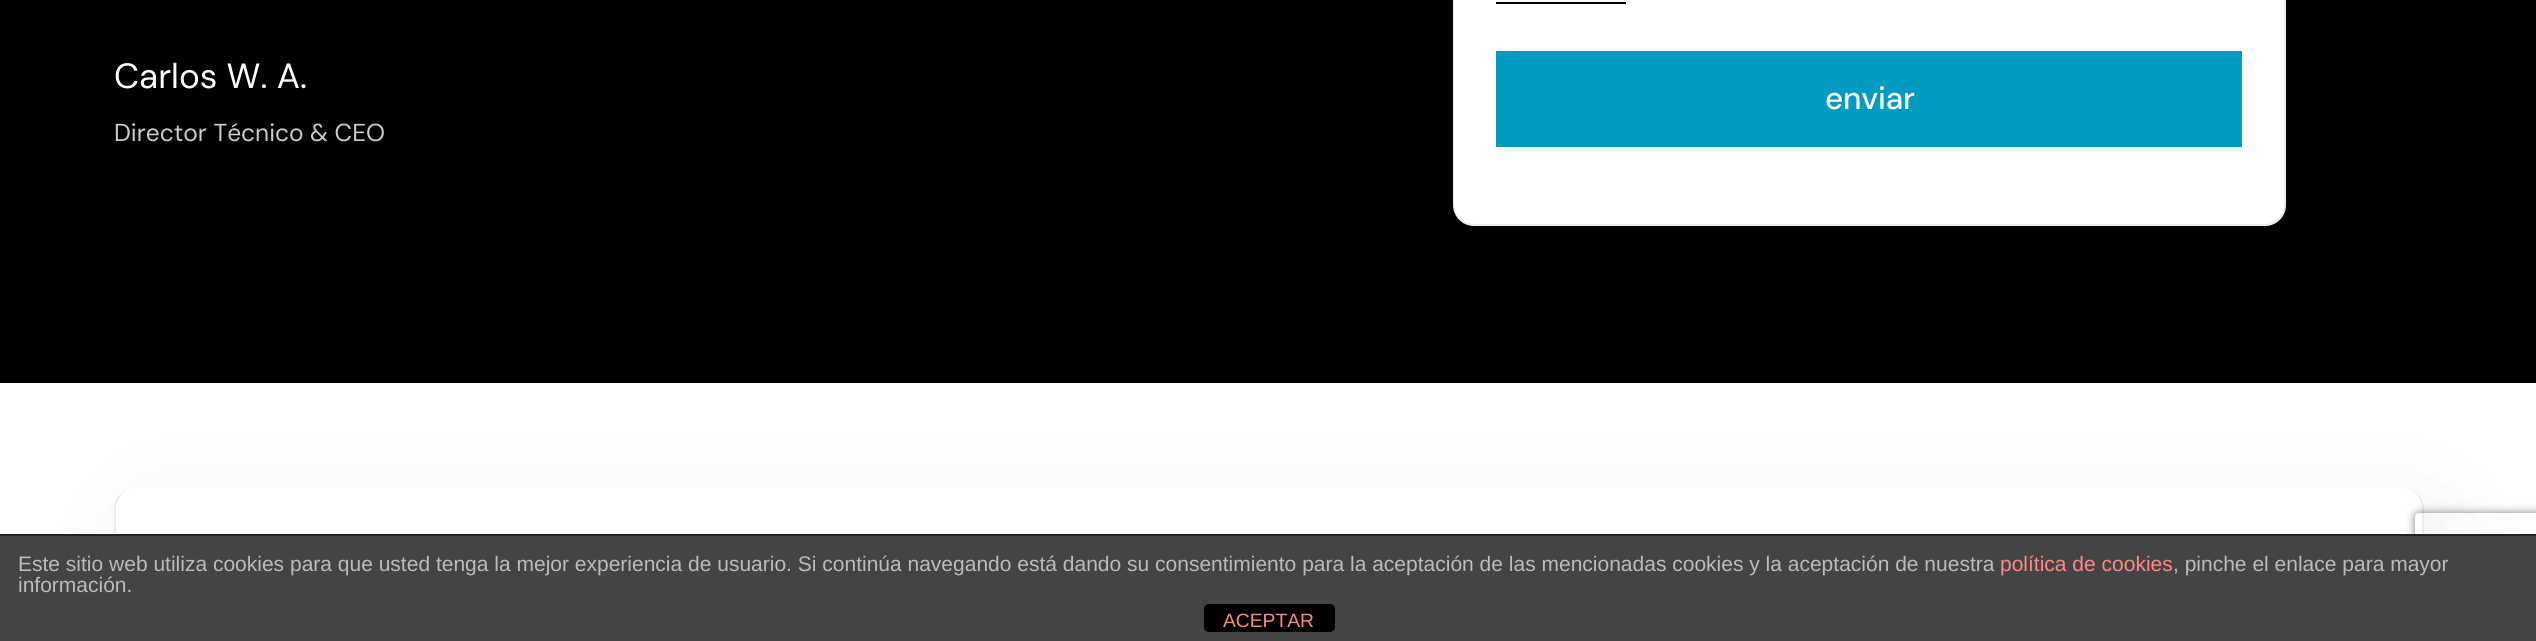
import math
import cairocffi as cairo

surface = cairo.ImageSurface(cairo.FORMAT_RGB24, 2536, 641)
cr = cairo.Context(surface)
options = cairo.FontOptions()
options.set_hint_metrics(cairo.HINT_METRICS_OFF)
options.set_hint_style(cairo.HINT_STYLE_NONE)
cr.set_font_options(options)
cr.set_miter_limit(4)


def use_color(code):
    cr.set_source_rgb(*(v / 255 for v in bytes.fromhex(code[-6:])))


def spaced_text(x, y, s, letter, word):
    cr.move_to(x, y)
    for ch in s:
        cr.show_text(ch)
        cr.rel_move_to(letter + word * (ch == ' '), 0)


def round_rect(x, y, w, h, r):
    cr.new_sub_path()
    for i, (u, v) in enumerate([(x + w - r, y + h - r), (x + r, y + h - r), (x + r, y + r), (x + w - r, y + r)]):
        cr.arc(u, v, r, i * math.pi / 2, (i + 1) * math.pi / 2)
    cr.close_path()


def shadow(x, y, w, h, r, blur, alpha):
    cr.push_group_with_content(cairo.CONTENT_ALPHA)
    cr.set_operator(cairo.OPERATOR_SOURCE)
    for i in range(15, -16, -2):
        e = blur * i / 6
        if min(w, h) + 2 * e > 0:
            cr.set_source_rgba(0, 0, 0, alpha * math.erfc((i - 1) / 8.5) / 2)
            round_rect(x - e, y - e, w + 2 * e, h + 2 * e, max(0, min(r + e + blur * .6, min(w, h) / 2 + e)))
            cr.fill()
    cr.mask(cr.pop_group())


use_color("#ffffff")
cr.paint()
use_color("#000000")
cr.rectangle(0, 0, 2536, 383)
cr.fill()
cr.select_font_face("DM Sans")
cr.set_font_size(35)
use_color("#ffffff")
cr.move_to(114, 88)
cr.show_text("Carlos W. A.")
cr.set_font_size(24.5)
use_color("#cccccc")
cr.move_to(114, 141)
cr.show_text("Director Técnico & CEO")
use_color("#ffffff")
round_rect(1453, -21, 833, 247, 21)
cr.fill()
cr.set_source_rgba(0, 0, 0, 0.08)
cr.set_fill_rule(cairo.FILL_RULE_EVEN_ODD)
cr.new_path()
cr.move_to(1474, -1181)
cr.line_to(2264, -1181)
cr.curve_to(2276, -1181, 2286, -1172, 2286, -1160)
cr.line_to(2286, 205)
cr.curve_to(2286, 216, 2276, 226, 2264, 226)
cr.line_to(1474, 226)
cr.curve_to(1462, 226, 1452, 216, 1452, 205)
cr.line_to(1452, -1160)
cr.curve_to(1452, -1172, 1462, -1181, 1474, -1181)
cr.close_path()
cr.move_to(1474, -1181)
cr.line_to(2264, -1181)
cr.curve_to(2275, -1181, 2284, -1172, 2284, -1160)
cr.line_to(2284, 205)
cr.curve_to(2284, 215, 2275, 224, 2264, 224)
cr.line_to(1474, 224)
cr.curve_to(1463, 224, 1454, 215, 1454, 205)
cr.line_to(1454, -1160)
cr.curve_to(1454, -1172, 1463, -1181, 1474, -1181)
cr.close_path()
cr.fill()
use_color("#000000")
cr.rectangle(1496, 2, 130, 2)
cr.fill()
use_color("#009bc1")
cr.rectangle(1496, 51, 746, 96)
cr.fill()
cr.select_font_face("DM Sans Medium")
cr.set_font_size(31.5)
use_color("#ffffff")
spaced_text(1825, 109, "enviar", -0.25, 0)
cr.save()
cr.new_path()
cr.move_to(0, 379)
cr.line_to(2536, 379)
cr.line_to(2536, 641)
cr.line_to(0, 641)
cr.close_path()
cr.move_to(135, 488)
cr.line_to(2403, 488)
cr.curve_to(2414.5, 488, 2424, 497.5, 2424, 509)
cr.line_to(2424, 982)
cr.curve_to(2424, 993.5, 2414.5, 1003, 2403, 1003)
cr.line_to(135, 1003)
cr.curve_to(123.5, 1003, 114, 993.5, 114, 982)
cr.line_to(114, 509)
cr.curve_to(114, 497.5, 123.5, 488, 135, 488)
cr.close_path()
cr.clip()
use_color("#000000")
shadow(145, 527, 2289, 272, 11, 49, 0.1)
cr.restore()
cr.save()
cr.new_path()
cr.move_to(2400, 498)
cr.line_to(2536, 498)
cr.line_to(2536, 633)
cr.line_to(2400, 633)
cr.close_path()
cr.move_to(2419, 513)
cr.line_to(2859, 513)
cr.curve_to(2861, 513, 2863, 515, 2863, 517)
cr.line_to(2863, 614)
cr.curve_to(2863, 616, 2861, 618, 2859, 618)
cr.line_to(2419, 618)
cr.curve_to(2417, 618, 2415, 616, 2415, 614)
cr.line_to(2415, 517)
cr.curve_to(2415, 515, 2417, 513, 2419, 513)
cr.close_path()
cr.clip()
use_color("#808080")
shadow(2415, 513, 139, 105, 4, 4.5, 1)
cr.restore()
cr.set_source_rgba(0, 0, 0, 0.08)
cr.new_path()
cr.move_to(135, 488)
cr.line_to(2403, 488)
cr.curve_to(2414, 488, 2424, 498, 2424, 509)
cr.line_to(2424, 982)
cr.curve_to(2424, 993, 2414, 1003, 2403, 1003)
cr.line_to(135, 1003)
cr.curve_to(123, 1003, 114, 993, 114, 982)
cr.line_to(114, 509)
cr.curve_to(114, 498, 123, 488, 135, 488)
cr.close_path()
cr.move_to(135, 488)
cr.line_to(2403, 488)
cr.curve_to(2413, 488, 2422, 498, 2422, 509)
cr.line_to(2422, 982)
cr.curve_to(2422, 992, 2413, 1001, 2403, 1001)
cr.line_to(135, 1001)
cr.curve_to(124, 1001, 116, 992, 116, 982)
cr.line_to(116, 509)
cr.curve_to(116, 498, 124, 488, 135, 488)
cr.close_path()
cr.fill()
use_color("#444444")
cr.rectangle(0, 536, 2536, 105)
cr.fill()
use_color("#222222")
cr.rectangle(0, 534, 2536, 2)
cr.fill()
cr.select_font_face("Liberation Sans")
cr.set_font_size(21)
use_color("#bbbbbb")
cr.move_to(18, 571)
cr.show_text("Este sitio web utiliza cookies para que usted tenga la mejor experiencia de usuario. Si continúa navegando está dando su consentimiento para la aceptación de las mencionadas cookies y la aceptación de nuestra")
use_color("#ff8888")
cr.move_to(2000, 571)
cr.show_text("política de cookies")
use_color("#bbbbbb")
cr.move_to(2173, 571)
cr.show_text(", pinche el enlace para mayor")
cr.move_to(18, 592)
cr.show_text("información.")
use_color("#000000")
round_rect(1204, 604, 131, 28, 5)
cr.fill()
cr.set_font_size(19.25)
use_color("#ff8888")
cr.move_to(1223, 627)
cr.show_text("ACEPTAR")
surface.write_to_png("result.png")
